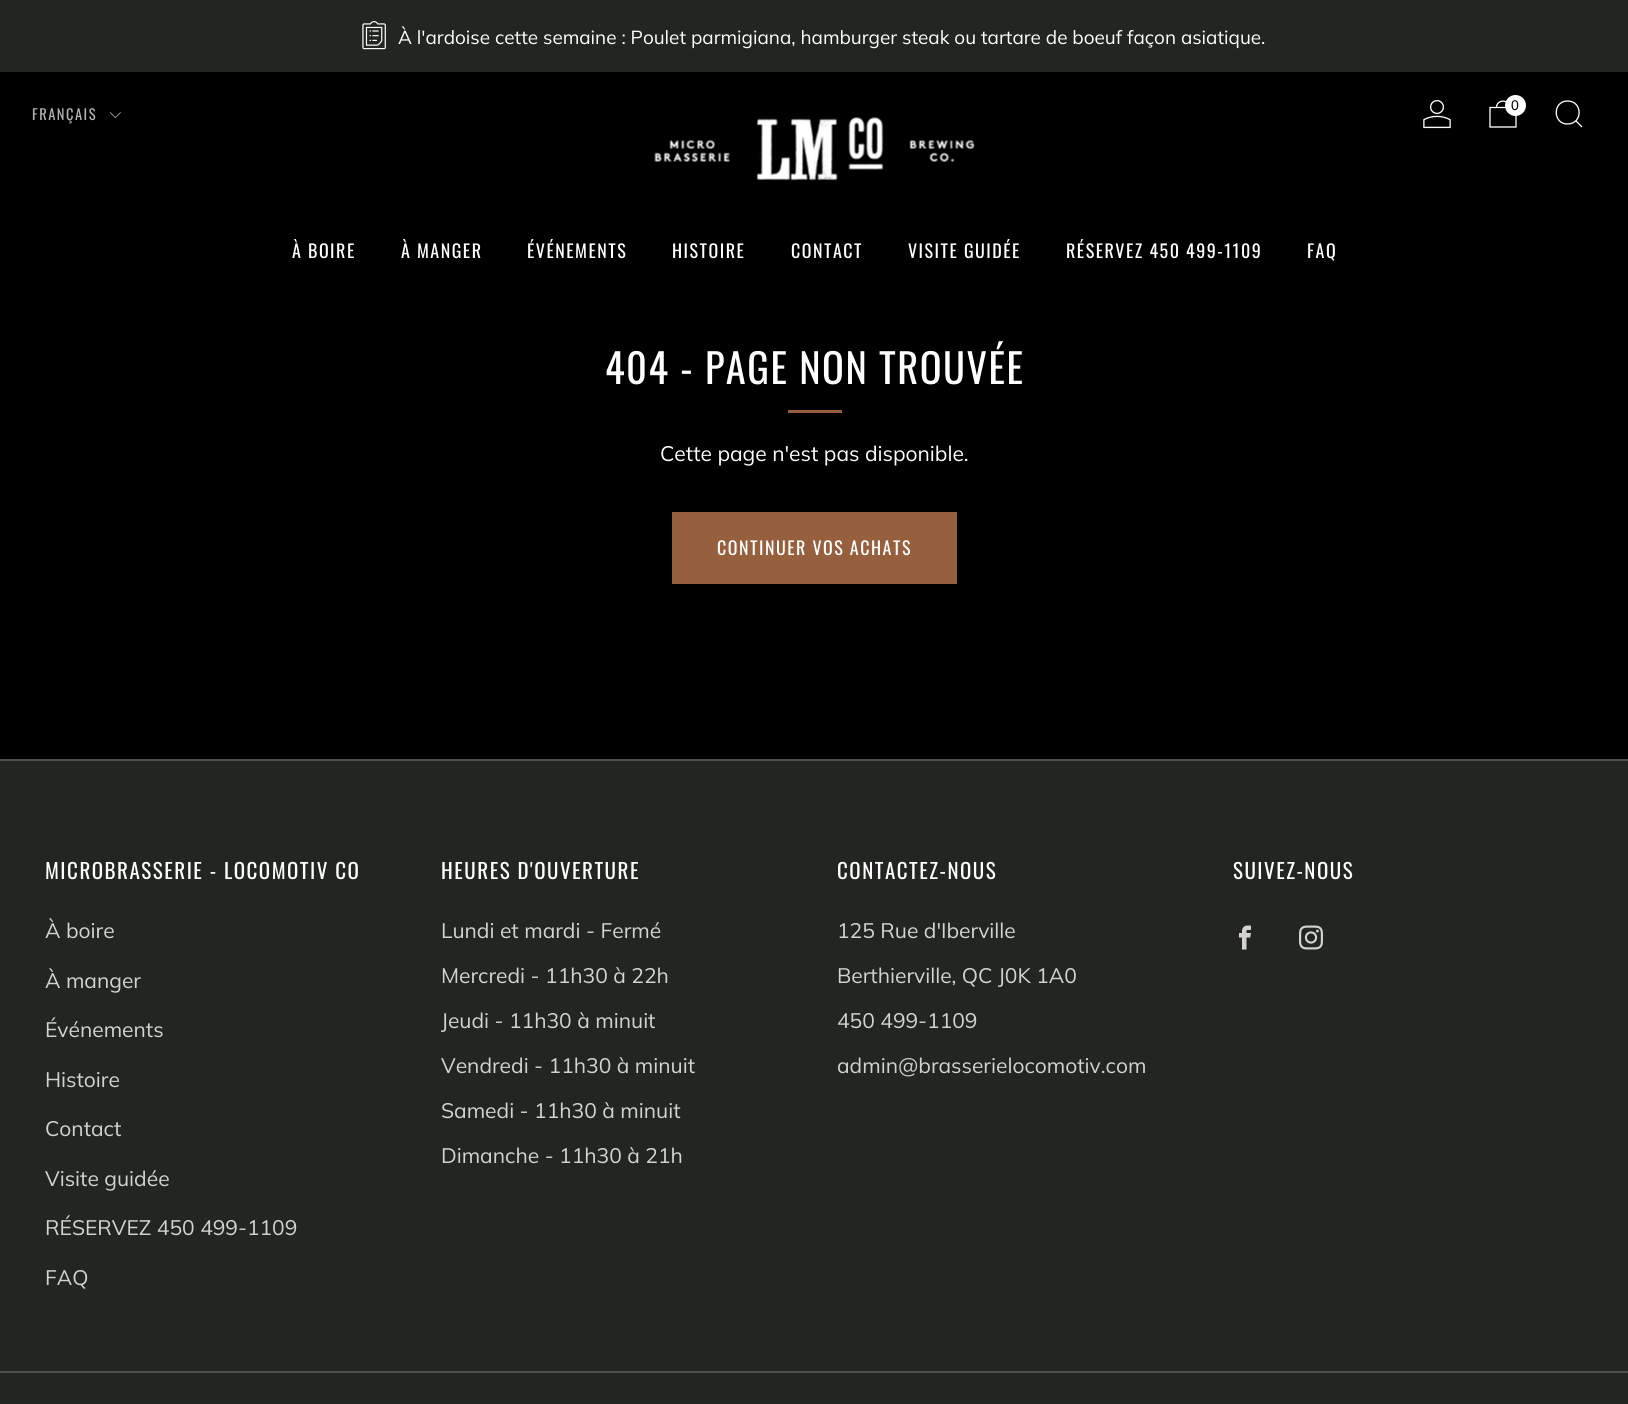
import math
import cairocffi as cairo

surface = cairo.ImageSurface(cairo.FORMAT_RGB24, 1628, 1404)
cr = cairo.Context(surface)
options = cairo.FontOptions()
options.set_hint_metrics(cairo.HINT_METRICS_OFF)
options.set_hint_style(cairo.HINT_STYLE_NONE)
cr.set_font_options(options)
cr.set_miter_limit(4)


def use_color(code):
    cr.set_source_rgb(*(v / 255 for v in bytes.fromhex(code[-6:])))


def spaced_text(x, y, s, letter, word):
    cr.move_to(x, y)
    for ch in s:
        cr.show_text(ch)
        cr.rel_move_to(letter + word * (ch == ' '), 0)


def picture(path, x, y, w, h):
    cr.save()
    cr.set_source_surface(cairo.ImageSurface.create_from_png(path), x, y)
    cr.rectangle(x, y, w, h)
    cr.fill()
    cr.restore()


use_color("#000000")
cr.paint()
use_color("#212620")
cr.rectangle(0, 0, 1628, 72)
cr.fill()
picture("img1.png", 362, 21, 24, 29)
cr.select_font_face("Muli")
cr.set_font_size(18.9)
use_color("#ffffff")
cr.move_to(398, 44)
cr.show_text("À l'ardoise cette semaine : Poulet parmigiana, hamburger steak ou tartare de boeuf façon asiatique.")
picture("img2.png", 1423, 100, 28, 29)
cr.new_path()
cr.move_to(1490, 107.5)
cr.line_to(1516, 107.5)
cr.line_to(1516, 127)
cr.line_to(1490, 127)
cr.close_path()
cr.move_to(1509.5, 107.5)
cr.curve_to(1509.5, 99, 1496.5, 99, 1496.5, 107.5)
cr.set_line_width(1.3)
cr.stroke()
cr.arc(1515.5, 105.5, 10.5, 0, 2 * math.pi)
cr.fill()
cr.select_font_face("Liberation Sans")
cr.set_font_size(14)
use_color("#000000")
cr.move_to(1511, 110)
cr.show_text("0")
cr.new_path()
cr.move_to(1567.5, 124)
cr.curve_to(1583, 124, 1583, 101, 1567.5, 101)
cr.curve_to(1552.5, 101, 1552.5, 124, 1567.5, 124)
cr.close_path()
cr.move_to(1576, 121)
cr.line_to(1582, 127)
use_color("#ffffff")
cr.stroke()
cr.select_font_face("Oswald")
cr.set_font_size(14.5)
use_color("#b3b3b3")
spaced_text(32, 120, "FRANÇAIS", 1.5, 0)
picture("img3.png", 109, 112, 12, 7)
cr.set_font_size(18)
use_color("#ffffff")
spaced_text(292, 258, "À BOIRE", 1.5, 0)
spaced_text(401, 258, "À MANGER", 1.5, 0)
spaced_text(527, 258, "ÉVÉNEMENTS", 1.5, 0)
spaced_text(672, 258, "HISTOIRE", 1.5, 0)
spaced_text(791, 258, "CONTACT", 1.5, 0)
spaced_text(908, 258, "VISITE GUIDÉE", 1.5, 0)
spaced_text(1066, 258, "RÉSERVEZ 450 499-1109", 1.5, 0)
spaced_text(1307, 258, "FAQ", 1.5, 0)
picture("img4.png", 654, 117, 321, 64)
cr.set_font_size(40.5)
spaced_text(605, 384, "404 - PAGE NON TROUVÉE", 1.5, 0)
use_color("#96603f")
cr.rectangle(788, 410, 54, 3)
cr.fill()
cr.select_font_face("Muli")
cr.set_font_size(21)
use_color("#ffffff")
cr.move_to(660, 461)
cr.show_text("Cette page n'est pas disponible.")
use_color("#96603f")
cr.rectangle(672, 512, 285, 72)
cr.fill()
cr.select_font_face("Oswald")
cr.set_font_size(18)
use_color("#ffffff")
spaced_text(717, 555, "CONTINUER VOS ACHATS", 1.5, 0)
use_color("#212620")
cr.rectangle(0, 761, 1628, 643)
cr.fill()
use_color("#4d514d")
cr.rectangle(0, 759, 1628, 2)
cr.fill()
cr.set_font_size(21)
use_color("#ffffff")
spaced_text(45, 879, "MICROBRASSERIE - LOCOMOTIV CO", 1.5, 0)
cr.select_font_face("Muli")
use_color("#d3d4d2")
cr.move_to(45, 938)
cr.show_text("À boire")
cr.move_to(45, 988)
cr.show_text("À manger")
cr.move_to(45, 1037)
cr.show_text("Événements")
cr.move_to(45, 1087)
cr.show_text("Histoire")
cr.move_to(45, 1136)
cr.show_text("Contact")
cr.move_to(45, 1186)
cr.show_text("Visite guidée")
cr.move_to(45, 1235)
cr.show_text("RÉSERVEZ 450 499-1109")
cr.move_to(45, 1285)
cr.show_text("FAQ")
cr.select_font_face("Oswald")
use_color("#ffffff")
spaced_text(441, 879, "HEURES D'OUVERTURE", 1.5, 0)
cr.select_font_face("Muli")
use_color("#d3d4d2")
cr.move_to(441, 938)
cr.show_text("Lundi et mardi - Fermé")
cr.move_to(441, 983)
cr.show_text("Mercredi - 11h30 à 22h")
cr.move_to(441, 1028)
cr.show_text("Jeudi - 11h30 à minuit")
cr.move_to(441, 1073)
cr.show_text("Vendredi - 11h30 à minuit")
cr.move_to(441, 1118)
cr.show_text("Samedi - 11h30 à minuit")
cr.move_to(441, 1163)
cr.show_text("Dimanche - 11h30 à 21h")
cr.select_font_face("Oswald")
use_color("#ffffff")
spaced_text(837, 879, "CONTACTEZ-NOUS", 1.5, 0)
cr.select_font_face("Muli")
use_color("#d3d4d2")
cr.move_to(837, 938)
cr.show_text("125 Rue d'Iberville")
cr.move_to(837, 983)
cr.show_text("Berthierville, QC J0K 1A0")
cr.move_to(837, 1028)
cr.show_text("450 499-1109")
cr.move_to(837, 1073)
cr.show_text("admin@brasserielocomotiv.com")
cr.select_font_face("Oswald")
use_color("#ffffff")
spaced_text(1233, 879, "SUIVEZ-NOUS", 1.5, 0)
picture("img5.png", 1239, 925, 12, 25)
picture("img6.png", 1299, 925, 24, 25)
use_color("#4d514d")
cr.rectangle(0, 1371, 1628, 2)
cr.fill()
surface.write_to_png("result.png")
